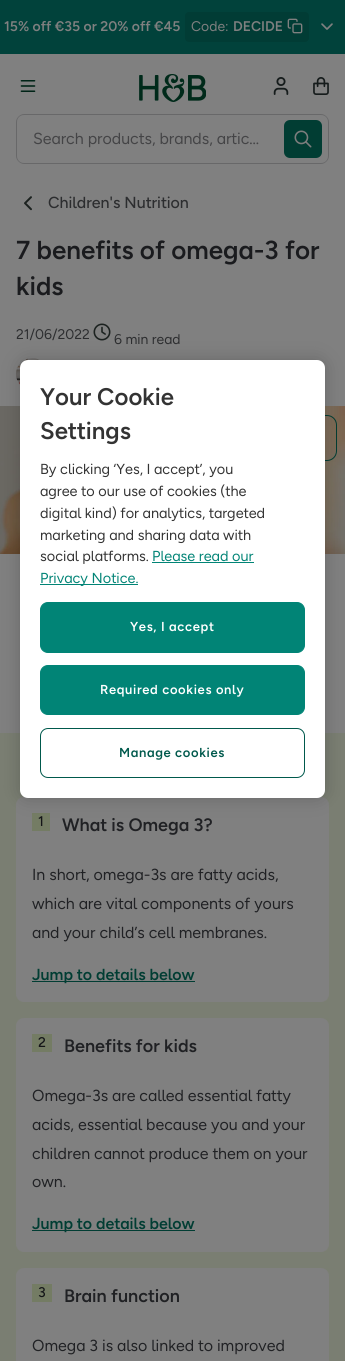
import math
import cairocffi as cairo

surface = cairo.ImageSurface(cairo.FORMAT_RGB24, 345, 1361)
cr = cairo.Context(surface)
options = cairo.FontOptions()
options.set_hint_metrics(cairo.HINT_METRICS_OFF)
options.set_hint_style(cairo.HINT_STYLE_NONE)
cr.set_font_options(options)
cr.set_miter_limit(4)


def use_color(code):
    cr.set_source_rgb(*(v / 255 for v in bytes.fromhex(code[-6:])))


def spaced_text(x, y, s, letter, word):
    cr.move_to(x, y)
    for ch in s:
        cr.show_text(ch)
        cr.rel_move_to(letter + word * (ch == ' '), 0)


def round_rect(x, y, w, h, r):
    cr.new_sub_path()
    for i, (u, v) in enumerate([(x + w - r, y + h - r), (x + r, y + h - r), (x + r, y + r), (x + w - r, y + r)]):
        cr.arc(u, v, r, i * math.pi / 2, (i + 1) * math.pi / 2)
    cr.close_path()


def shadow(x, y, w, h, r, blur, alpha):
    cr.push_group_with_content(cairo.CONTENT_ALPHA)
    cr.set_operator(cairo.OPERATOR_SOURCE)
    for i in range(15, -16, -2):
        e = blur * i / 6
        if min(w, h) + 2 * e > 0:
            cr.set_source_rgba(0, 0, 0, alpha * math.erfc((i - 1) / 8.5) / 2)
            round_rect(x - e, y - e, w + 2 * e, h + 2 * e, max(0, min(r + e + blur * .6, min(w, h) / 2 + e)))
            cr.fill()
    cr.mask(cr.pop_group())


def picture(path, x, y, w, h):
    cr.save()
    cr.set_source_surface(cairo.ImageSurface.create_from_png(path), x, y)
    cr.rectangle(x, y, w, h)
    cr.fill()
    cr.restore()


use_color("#808080")
cr.paint()
use_color("#01423b")
cr.rectangle(0, 0, 345, 54)
cr.fill()
cr.select_font_face("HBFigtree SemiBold")
cr.set_font_size(14)
use_color("#808080")
cr.move_to(4, 31)
cr.show_text("15% off €35 or 20% off €45")
use_color("#013c35")
round_rect(185, 12, 124, 30, 4)
cr.fill()
cr.select_font_face("HBFigtree")
use_color("#808080")
cr.move_to(191, 31)
cr.show_text("Code:")
cr.select_font_face("HBFigtree SemiBold")
cr.move_to(233, 31)
cr.show_text("DECIDE")
picture("img1.png", 287, 18, 16, 16)
picture("img2.png", 321, 23, 12, 7)
picture("img3.png", 20, 80, 16, 12)
picture("img4.png", 139, 74, 67, 28)
picture("img5.png", 273, 77, 16, 18)
picture("img6.png", 313, 77, 16, 18)
use_color("#686869")
cr.set_fill_rule(cairo.FILL_RULE_EVEN_ODD)
cr.new_path()
cr.move_to(24, 114)
cr.line_to(284, 114)
cr.line_to(284, 164)
cr.line_to(24, 164)
cr.curve_to(20, 164, 16, 160, 16, 156)
cr.line_to(16, 122)
cr.curve_to(16, 118, 20, 114, 24, 114)
cr.close_path()
cr.move_to(24, 115)
cr.line_to(284, 115)
cr.line_to(284, 163)
cr.line_to(24, 163)
cr.curve_to(20, 163, 17, 160, 17, 156)
cr.line_to(17, 122)
cr.curve_to(17, 118, 20, 115, 24, 115)
cr.close_path()
cr.fill()
cr.select_font_face("HBFigtree")
cr.set_font_size(16)
use_color("#444446")
cr.move_to(33, 144)
cr.show_text("Search products, brands, artic…")
use_color("#686869")
cr.new_path()
cr.move_to(284, 114)
cr.line_to(321, 114)
cr.curve_to(325, 114, 329, 118, 329, 122)
cr.line_to(329, 156)
cr.curve_to(329, 160, 325, 164, 321, 164)
cr.line_to(284, 164)
cr.close_path()
cr.move_to(284, 115)
cr.line_to(321, 115)
cr.curve_to(325, 115, 328, 118, 328, 122)
cr.line_to(328, 156)
cr.curve_to(328, 160, 325, 163, 321, 163)
cr.line_to(284, 163)
cr.close_path()
cr.fill()
use_color("#013d33")
round_rect(284, 120, 38, 38, 6)
cr.fill()
picture("img7.png", 294, 130, 18, 18)
picture("img8.png", 24, 196, 8, 15)
cr.select_font_face("HBFigtree Medium")
use_color("#2c2d2f")
cr.move_to(48, 208)
cr.show_text("Children's Nutrition")
cr.select_font_face("HBFigtree SemiBold")
cr.set_font_size(26)
use_color("#1a1b1e")
cr.move_to(16, 259)
cr.show_text("7 benefits of omega-3 for")
cr.move_to(16, 295)
cr.show_text("kids")
cr.select_font_face("HBFigtree")
cr.set_font_size(14)
use_color("#2c2d2f")
cr.move_to(16, 339)
cr.show_text("21/06/2022")
picture("img9.png", 93, 323, 18, 18)
cr.move_to(114, 344)
cr.show_text("6 min read")
picture("img10.png", 16, 358, 24, 27)
picture("img11.png", 0, 406, 345, 148)
round_rect(295.5, 415.5, 41, 45, 9.5)
use_color("#013d33")
cr.set_line_width(1)
cr.stroke()
use_color("#7a7e72")
cr.rectangle(0, 733, 345, 628)
cr.fill()
use_color("#808080")
round_rect(16, 797, 313, 205, 8)
cr.fill()
use_color("#747c64")
cr.rectangle(32, 813, 18, 18)
cr.fill()
cr.select_font_face("HBFigtree Medium")
use_color("#141518")
cr.move_to(38, 826)
cr.show_text("1")
cr.select_font_face("HBFigtree SemiBold")
cr.set_font_size(18)
use_color("#202124")
cr.move_to(62, 831)
cr.show_text("What is Omega 3?")
cr.select_font_face("HBFigtree")
cr.set_font_size(16)
cr.move_to(32, 880)
cr.show_text("In short, omega-3s are fatty acids,")
cr.move_to(32, 909)
cr.show_text("which are vital components of yours")
cr.move_to(32, 938)
cr.show_text("and your child’s cell membranes.")
use_color("#013d33")
cr.rectangle(32, 981, 163, 1)
cr.fill()
cr.select_font_face("HBFigtree SemiBold")
cr.move_to(32, 980)
cr.show_text("Jump to details below")
use_color("#808080")
round_rect(16, 1018, 313, 234, 8)
cr.fill()
use_color("#747c64")
cr.rectangle(32, 1034, 20, 18)
cr.fill()
cr.select_font_face("HBFigtree Medium")
cr.set_font_size(14)
use_color("#141518")
cr.move_to(38, 1047)
cr.show_text("2")
cr.select_font_face("HBFigtree SemiBold")
cr.set_font_size(18)
use_color("#202124")
cr.move_to(64, 1052)
cr.show_text("Benefits for kids")
cr.select_font_face("HBFigtree")
cr.set_font_size(16)
cr.move_to(32, 1101)
cr.show_text("Omega-3s are called essential fatty")
cr.move_to(32, 1130)
cr.show_text("acids, essential because you and your")
cr.move_to(32, 1159)
cr.show_text("children cannot produce them on your")
cr.move_to(32, 1187)
cr.show_text("own.")
use_color("#013d33")
cr.rectangle(32, 1230, 163, 1)
cr.fill()
cr.select_font_face("HBFigtree SemiBold")
cr.move_to(32, 1229)
cr.show_text("Jump to details below")
use_color("#808080")
round_rect(16, 1268, 313, 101, 8)
cr.fill()
use_color("#747c64")
cr.rectangle(32, 1284, 20, 18)
cr.fill()
cr.select_font_face("HBFigtree Medium")
cr.set_font_size(14)
use_color("#141518")
cr.move_to(38, 1297)
cr.show_text("3")
cr.select_font_face("HBFigtree SemiBold")
cr.set_font_size(18)
use_color("#202124")
cr.move_to(64, 1302)
cr.show_text("Brain function")
cr.select_font_face("HBFigtree")
cr.set_font_size(16)
cr.move_to(32, 1351)
cr.show_text("Omega 3 is also linked to improved")
use_color("#000000")
shadow(20, 360, 305, 438, 8, 9, 0.2)
use_color("#ffffff")
round_rect(20, 360, 305, 438, 8)
cr.fill()
cr.select_font_face("HBFigtree SemiBold")
cr.set_font_size(24)
use_color("#333333")
cr.move_to(40, 405)
cr.show_text("Your Cookie")
cr.move_to(40, 439)
cr.show_text("Settings")
cr.select_font_face("HBFigtree")
cr.set_font_size(14.5)
cr.move_to(40, 474)
cr.show_text("By clicking ‘Yes, I accept’, you")
cr.move_to(40, 496)
cr.show_text("agree to our use of cookies (the")
cr.move_to(40, 518)
cr.show_text("digital kind) for analytics, targeted")
cr.move_to(40, 540)
cr.show_text("marketing and sharing data with")
cr.move_to(40, 561)
cr.show_text("social platforms.")
use_color("#018476")
cr.move_to(152, 561)
cr.show_text("Please read our")
cr.rectangle(152, 562, 102, 1)
cr.fill()
cr.rectangle(40, 584, 98, 1)
cr.fill()
cr.move_to(40, 583)
cr.show_text("Privacy Notice.")
round_rect(40.5, 602.5, 264, 50, 7.5)
cr.fill_preserve()
cr.stroke()
cr.select_font_face("HBFigtree SemiBold")
cr.set_font_size(13)
use_color("#ffffff")
spaced_text(130, 631, "Yes, I accept", 0.65, 0)
use_color("#018476")
round_rect(40.5, 665.5, 264, 49, 7.5)
cr.fill_preserve()
cr.stroke()
use_color("#ffffff")
spaced_text(100, 694, "Required cookies only", 0.65, 0)
round_rect(40.5, 728.5, 264, 49, 7.5)
use_color("#00594c")
cr.stroke()
spaced_text(119, 757, "Manage cookies", 0.65, 0)
surface.write_to_png("result.png")
